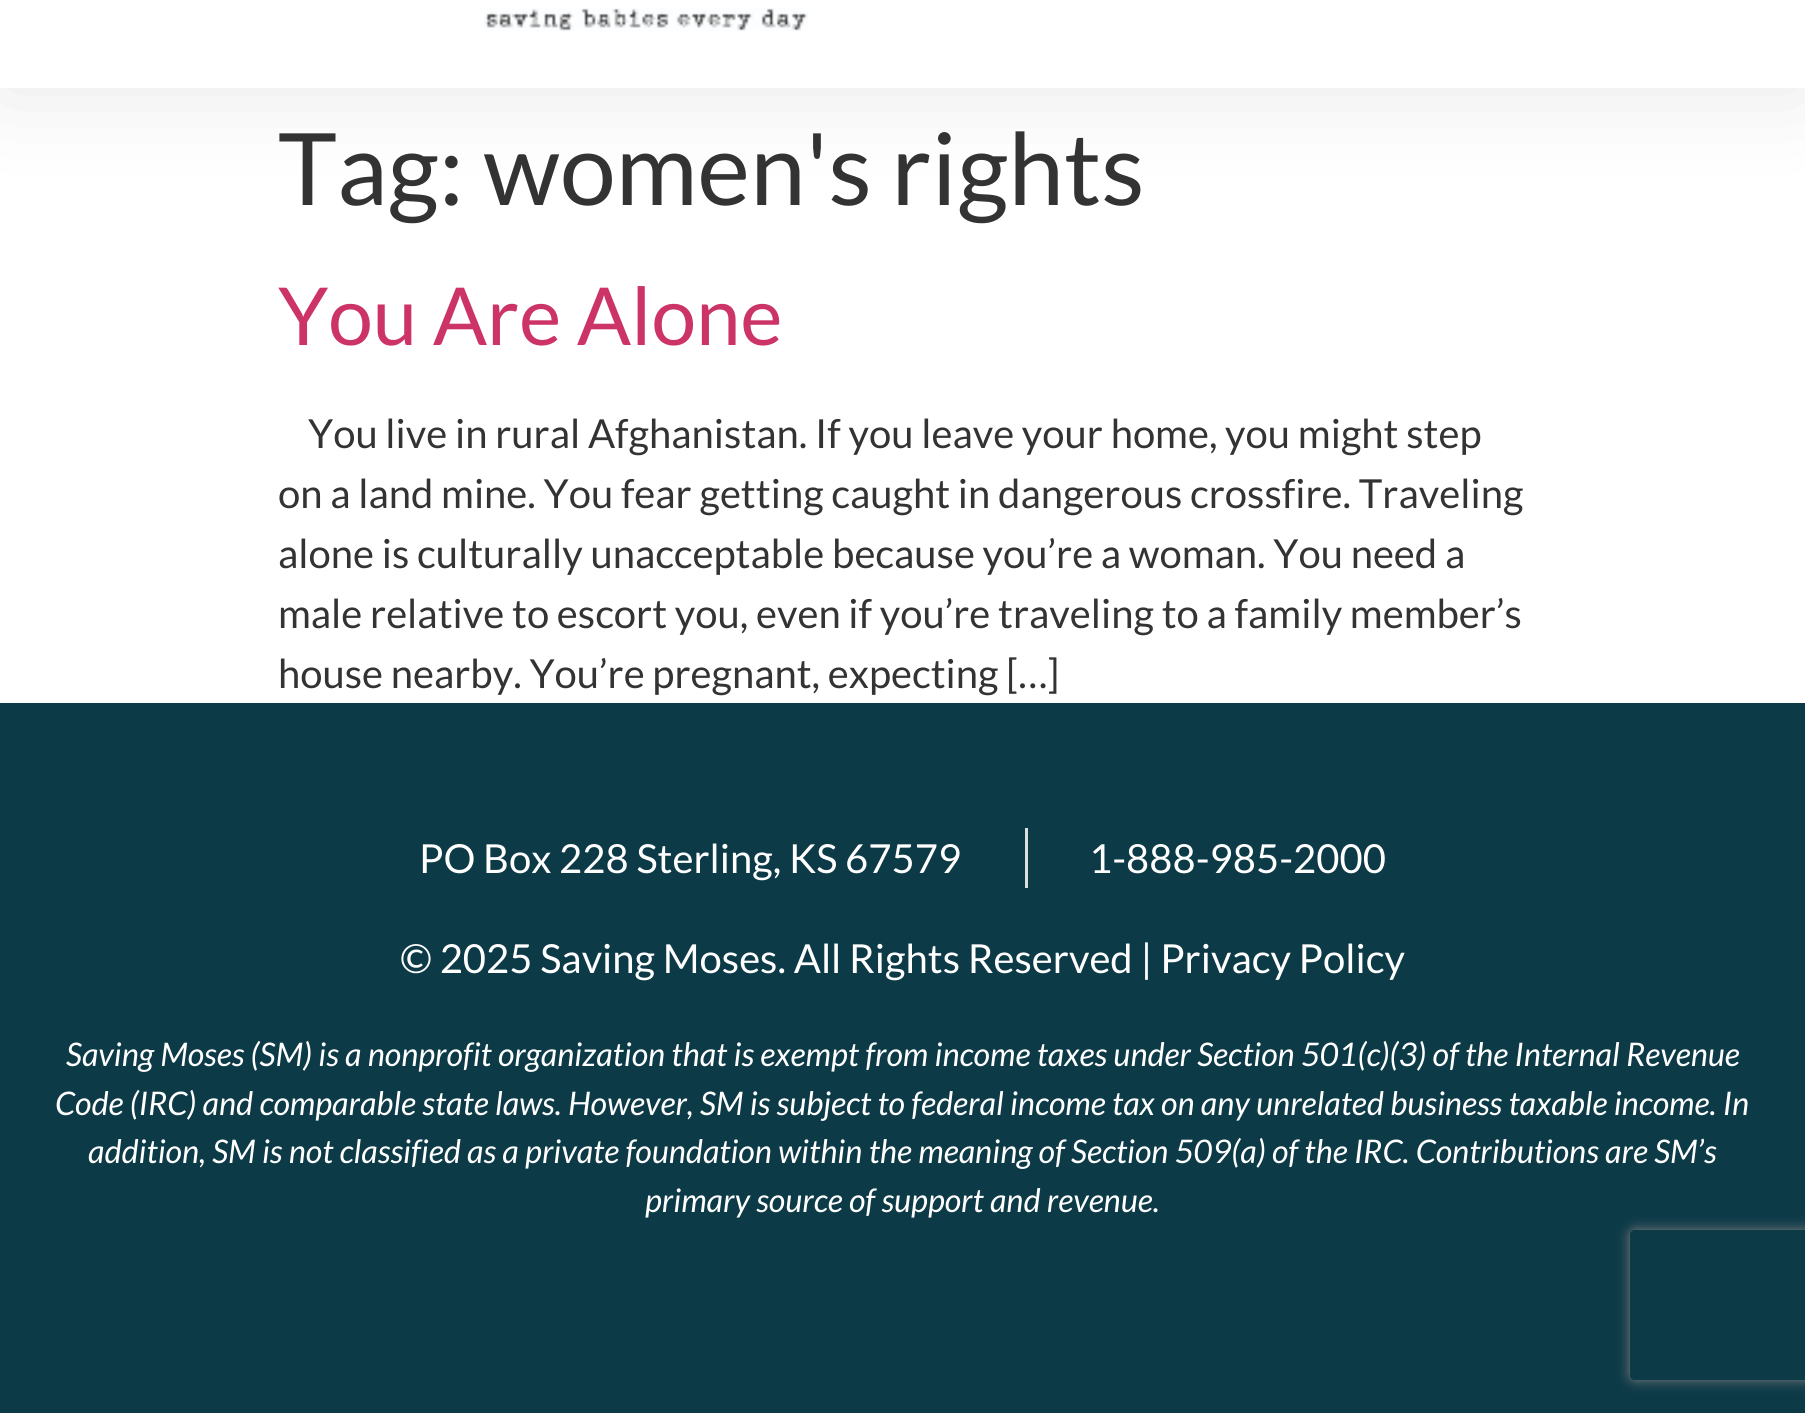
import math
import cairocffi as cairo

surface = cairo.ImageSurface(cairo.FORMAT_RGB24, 1805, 1413)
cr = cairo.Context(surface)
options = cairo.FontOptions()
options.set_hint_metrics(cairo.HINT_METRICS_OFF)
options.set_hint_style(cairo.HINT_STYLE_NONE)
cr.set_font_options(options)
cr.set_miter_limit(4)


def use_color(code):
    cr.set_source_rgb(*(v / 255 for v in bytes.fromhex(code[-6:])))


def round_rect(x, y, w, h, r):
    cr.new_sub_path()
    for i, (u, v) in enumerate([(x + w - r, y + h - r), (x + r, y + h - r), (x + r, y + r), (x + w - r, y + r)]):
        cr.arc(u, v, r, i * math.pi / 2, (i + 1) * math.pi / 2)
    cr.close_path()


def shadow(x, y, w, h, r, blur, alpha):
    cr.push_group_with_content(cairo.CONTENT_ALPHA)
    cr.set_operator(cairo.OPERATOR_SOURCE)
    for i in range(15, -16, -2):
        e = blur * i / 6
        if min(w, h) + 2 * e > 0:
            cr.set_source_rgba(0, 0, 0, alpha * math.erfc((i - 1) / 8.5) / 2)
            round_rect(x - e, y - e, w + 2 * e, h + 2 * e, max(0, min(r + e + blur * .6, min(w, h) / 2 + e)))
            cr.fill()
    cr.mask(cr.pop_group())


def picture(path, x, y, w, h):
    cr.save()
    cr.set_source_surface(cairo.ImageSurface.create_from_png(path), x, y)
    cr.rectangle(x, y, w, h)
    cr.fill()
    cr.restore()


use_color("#ffffff")
cr.paint()
cr.save()
cr.set_fill_rule(cairo.FILL_RULE_EVEN_ODD)
cr.new_path()
cr.move_to(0, 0)
cr.line_to(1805, 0)
cr.line_to(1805, 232)
cr.line_to(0, 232)
cr.close_path()
cr.move_to(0, -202)
cr.line_to(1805, -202)
cr.line_to(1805, 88)
cr.line_to(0, 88)
cr.close_path()
cr.clip()
use_color("#000000")
shadow(0, -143, 1805, 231, 0, 47.5, 0.1)
cr.restore()
picture("img1.png", 484, 8, 324, 23)
cr.select_font_face("Lato")
cr.set_font_size(100)
use_color("#333333")
cr.move_to(278, 205)
cr.show_text("Tag: women's rights")
cr.set_font_size(80)
use_color("#cc3366")
cr.move_to(278, 345)
cr.show_text("You Are Alone")
cr.set_font_size(40)
use_color("#333333")
cr.move_to(308, 448)
cr.show_text("You live in rural Afghanistan. If you leave your home, you might step")
cr.move_to(278, 508)
cr.show_text("on a land mine. You fear getting caught in dangerous crossfire. Traveling")
cr.move_to(278, 568)
cr.show_text("alone is culturally unacceptable because you’re a woman. You need a")
cr.move_to(278, 628)
cr.show_text("male relative to escort you, even if you’re traveling to a family member’s")
cr.move_to(278, 688)
cr.show_text("house nearby. You’re pregnant, expecting […]")
use_color("#0d3a47")
cr.rectangle(0, 703, 1805, 710)
cr.fill()
use_color("#ffffff")
cr.move_to(419, 873)
cr.show_text("PO Box 228 Sterling, KS 67579")
use_color("#dddddd")
cr.rectangle(1025, 828, 3, 60)
cr.fill()
use_color("#ffffff")
cr.move_to(1089, 873)
cr.show_text("1-888-985-2000")
cr.move_to(400, 973)
cr.show_text("© 2025 Saving Moses. All Rights Reserved | Privacy Policy")
cr.select_font_face("Lato", cairo.FONT_SLANT_ITALIC)
cr.set_font_size(32.5)
cr.move_to(66, 1066)
cr.show_text("Saving Moses (SM) is a nonprofit organization that is exempt from income taxes under Section 501(c)(3) of the Internal Revenue")
cr.move_to(55, 1115)
cr.show_text("Code (IRC) and comparable state laws. However, SM is subject to federal income tax on any unrelated business taxable income. In")
cr.move_to(88, 1163)
cr.show_text("addition, SM is not classified as a private foundation within the meaning of Section 509(a) of the IRC. Contributions are SM’s")
cr.move_to(645, 1212)
cr.show_text("primary source of support and revenue.")
cr.save()
cr.set_fill_rule(cairo.FILL_RULE_EVEN_ODD)
cr.new_path()
cr.move_to(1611, 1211)
cr.line_to(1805, 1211)
cr.line_to(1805, 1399)
cr.line_to(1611, 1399)
cr.close_path()
cr.move_to(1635, 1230)
cr.line_to(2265, 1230)
cr.curve_to(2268, 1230, 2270, 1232, 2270, 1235)
cr.line_to(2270, 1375)
cr.curve_to(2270, 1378, 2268, 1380, 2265, 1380)
cr.line_to(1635, 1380)
cr.curve_to(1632, 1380, 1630, 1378, 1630, 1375)
cr.line_to(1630, 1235)
cr.curve_to(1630, 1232, 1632, 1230, 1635, 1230)
cr.close_path()
cr.clip()
use_color("#808080")
shadow(1630, 1230, 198, 150, 5, 6, 1)
cr.restore()
surface.write_to_png("result.png")
